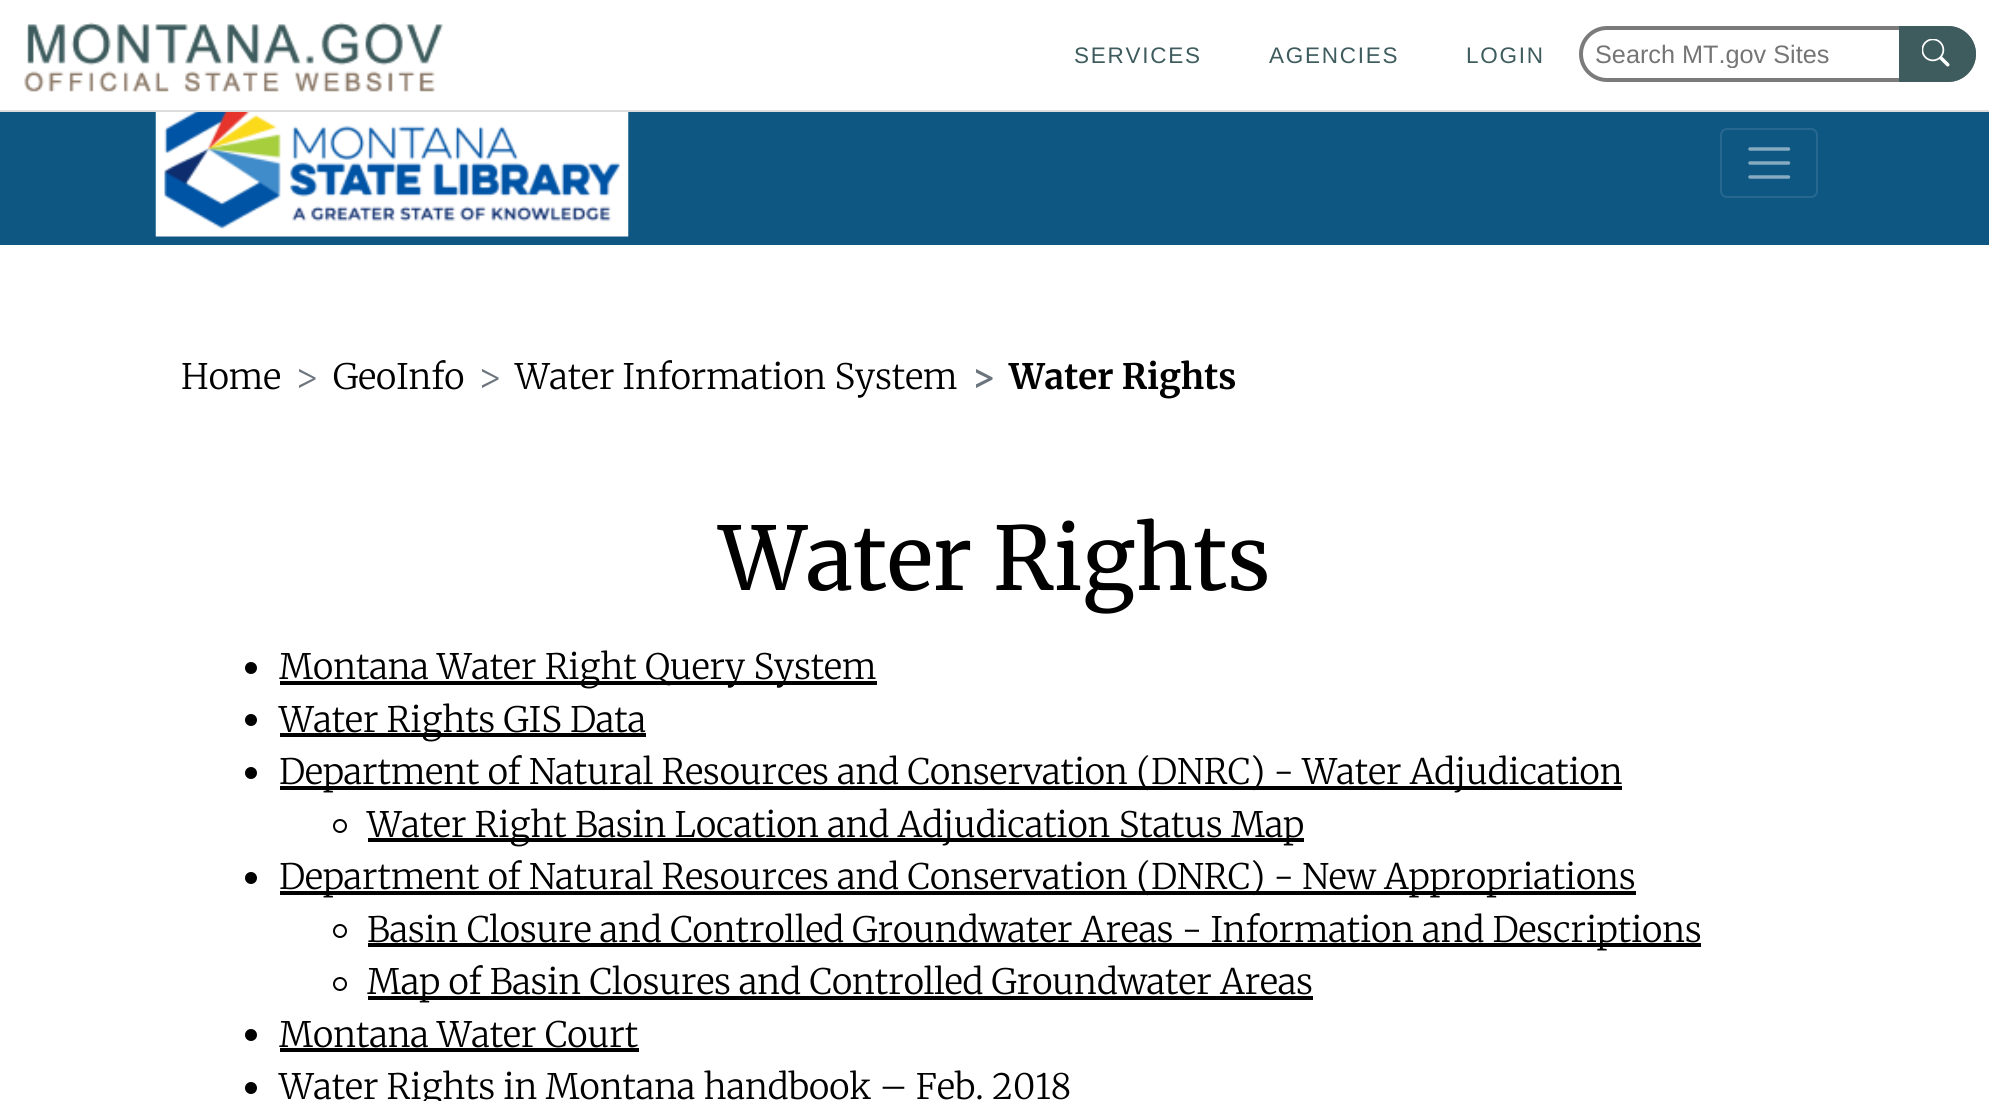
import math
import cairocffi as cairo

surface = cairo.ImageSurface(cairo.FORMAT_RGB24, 1989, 1101)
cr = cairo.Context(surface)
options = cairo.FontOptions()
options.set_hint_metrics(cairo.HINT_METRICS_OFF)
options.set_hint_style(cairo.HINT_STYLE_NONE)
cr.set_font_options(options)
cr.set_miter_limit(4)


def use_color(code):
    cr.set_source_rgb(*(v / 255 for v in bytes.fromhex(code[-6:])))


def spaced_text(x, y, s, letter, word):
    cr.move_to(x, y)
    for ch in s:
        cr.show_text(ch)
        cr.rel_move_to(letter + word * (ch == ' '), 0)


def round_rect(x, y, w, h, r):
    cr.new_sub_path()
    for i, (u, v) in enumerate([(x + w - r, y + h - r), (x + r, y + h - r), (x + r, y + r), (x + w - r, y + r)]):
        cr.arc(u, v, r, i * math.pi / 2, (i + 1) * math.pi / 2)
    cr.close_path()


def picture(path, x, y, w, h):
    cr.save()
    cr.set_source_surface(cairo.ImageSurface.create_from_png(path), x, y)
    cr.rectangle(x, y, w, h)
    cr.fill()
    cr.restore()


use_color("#ffffff")
cr.paint()
use_color("#dbdcde")
cr.rectangle(0, 110, 1989, 2)
cr.fill()
picture("img1.png", 24, 22, 420, 70)
cr.select_font_face("Liberation Sans")
cr.set_font_size(22.5)
use_color("#3e5b5d")
spaced_text(1074, 63, "SERVICES", 1.75, 0)
spaced_text(1269, 63, "AGENCIES", 1.75, 0)
spaced_text(1466, 63, "LOGIN", 1.75, 0)
round_rect(1581, 28, 393, 52, 26)
use_color("#7b7b7b")
cr.set_line_width(4)
cr.stroke()
cr.save()
cr.rectangle(1596, 40, 362, 28)
cr.clip()
cr.set_font_size(25.25)
use_color("#757575")
cr.move_to(1595, 63)
cr.show_text("Search MT.gov Sites")
cr.restore()
use_color("#3e5c5e")
cr.new_path()
cr.move_to(1899, 26)
cr.line_to(1948, 26)
cr.curve_to(1963.5, 26, 1976, 38.5, 1976, 54)
cr.curve_to(1976, 69.5, 1963.5, 82, 1948, 82)
cr.line_to(1899, 82)
cr.close_path()
cr.fill()
picture("img2.png", 1922, 39, 28, 28)
use_color("#0e5783")
cr.rectangle(0, 112, 1989, 133)
cr.fill()
picture("img3.png", 155, 112, 474, 125)
round_rect(1721, 129, 96, 68, 6)
use_color("#26688f")
cr.set_line_width(2)
cr.stroke()
cr.new_path()
cr.move_to(1750, 149)
cr.line_to(1788.5, 149)
cr.move_to(1750, 163)
cr.line_to(1788.5, 163)
cr.move_to(1750, 177)
cr.line_to(1788.5, 177)
use_color("#87abc1")
cr.set_line_width(3.5)
cr.set_line_cap(cairo.LINE_CAP_ROUND)
cr.stroke()
cr.select_font_face("Merriweather Light")
cr.set_font_size(35)
use_color("#000000")
cr.move_to(181, 389)
cr.show_text("Home")
use_color("#6c757d")
cr.move_to(295, 389)
cr.show_text(">")
use_color("#000000")
cr.move_to(333, 389)
cr.show_text("GeoInfo")
use_color("#6c757d")
cr.move_to(478, 389)
cr.show_text(">")
use_color("#000000")
cr.move_to(515, 389)
cr.show_text("Water Information System")
cr.select_font_face("Merriweather", cairo.FONT_SLANT_NORMAL, cairo.FONT_WEIGHT_BOLD)
use_color("#6c757d")
cr.move_to(972, 389)
cr.show_text(">")
use_color("#000000")
cr.move_to(1009, 389)
cr.show_text("Water Rights")
cr.select_font_face("Merriweather")
cr.set_font_size(87.5)
cr.move_to(719, 590)
cr.show_text("Water Rights")
cr.new_path()
cr.arc(251, 668, 6, 0, 2 * math.pi)
cr.fill()
cr.rectangle(280, 681, 597, 4)
cr.fill()
cr.select_font_face("Merriweather Light")
cr.set_font_size(35)
cr.move_to(279, 679)
cr.show_text("Montana Water Right Query System")
cr.new_path()
cr.arc(251, 720, 6, 0, 2 * math.pi)
cr.fill()
cr.rectangle(280, 733, 366, 4)
cr.fill()
cr.move_to(279, 732)
cr.show_text("Water Rights GIS Data")
cr.new_path()
cr.arc(251, 773, 6, 0, 2 * math.pi)
cr.fill()
cr.rectangle(280, 786, 1342, 4)
cr.fill()
cr.move_to(279, 784)
cr.show_text("Department of Natural Resources and Conservation (DNRC) - Water Adjudication")
cr.new_path()
cr.arc(340, 826, 6, 0, 2 * math.pi)
cr.set_line_width(2)
cr.set_line_cap(cairo.LINE_CAP_BUTT)
cr.stroke()
cr.rectangle(368, 838, 936, 4)
cr.fill()
cr.move_to(367, 837)
cr.show_text("Water Right Basin Location and Adjudication Status Map")
cr.new_path()
cr.arc(251, 878, 6, 0, 2 * math.pi)
cr.fill()
cr.rectangle(280, 891, 1356, 4)
cr.fill()
cr.move_to(279, 889)
cr.show_text("Department of Natural Resources and Conservation (DNRC) - New Appropriations")
cr.new_path()
cr.arc(340, 931, 6, 0, 2 * math.pi)
cr.stroke()
cr.rectangle(368, 943, 1333, 4)
cr.fill()
cr.move_to(367, 942)
cr.show_text("Basin Closure and Controlled Groundwater Areas - Information and Descriptions")
cr.new_path()
cr.arc(340, 984, 6, 0, 2 * math.pi)
cr.stroke()
cr.rectangle(368, 996, 945, 4)
cr.fill()
cr.move_to(367, 994)
cr.show_text("Map of Basin Closures and Controlled Groundwater Areas")
cr.new_path()
cr.arc(251, 1035, 6, 0, 2 * math.pi)
cr.fill()
cr.move_to(279, 1047)
cr.show_text("Montana Water Court")
cr.rectangle(280, 1048, 359, 4)
cr.fill()
cr.arc(251, 1088, 6, 0, 2 * math.pi)
cr.fill()
cr.move_to(279, 1099)
cr.show_text("Water Rights in Montana handbook – Feb. 2018")
surface.write_to_png("result.png")
